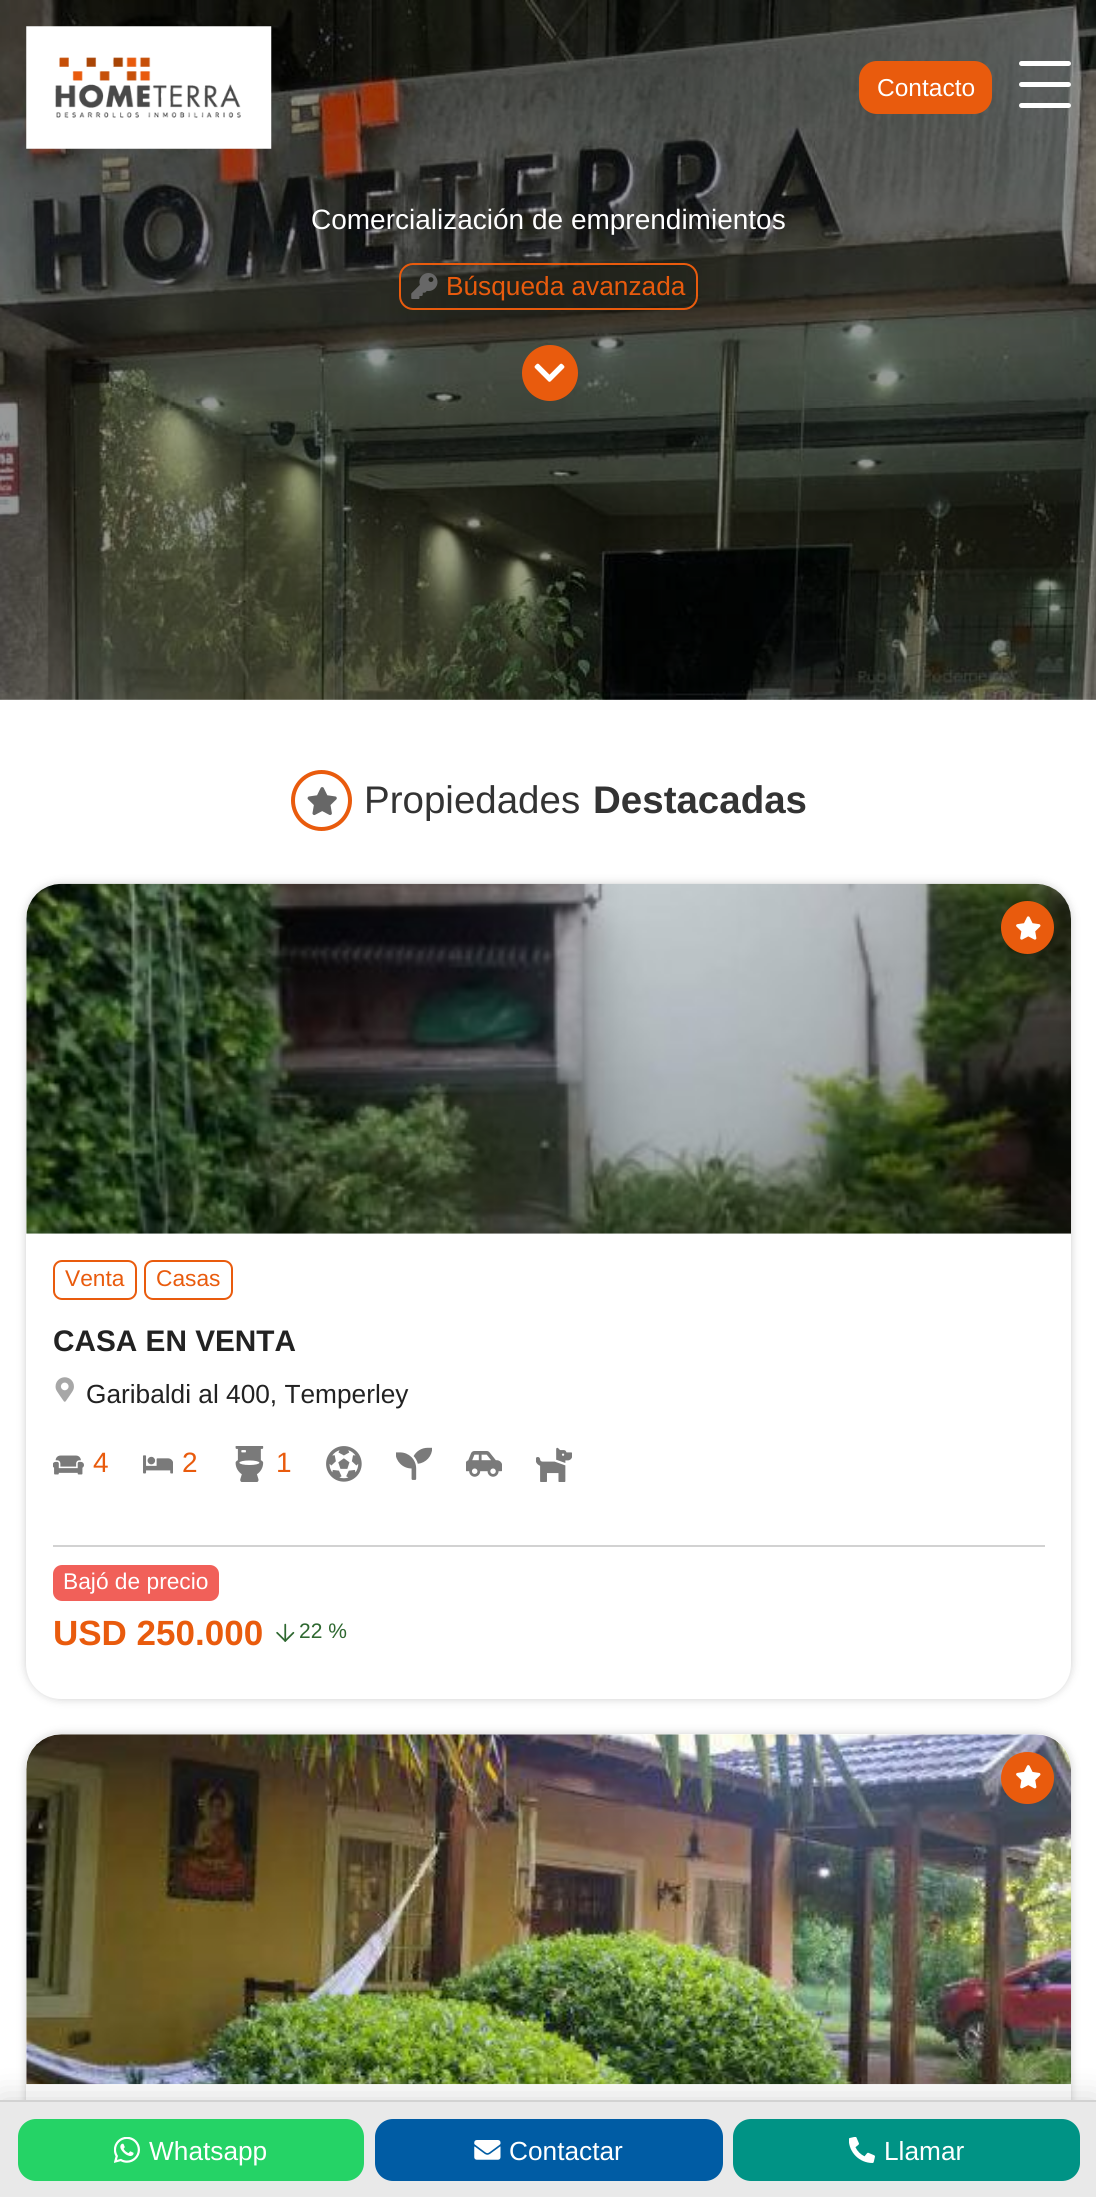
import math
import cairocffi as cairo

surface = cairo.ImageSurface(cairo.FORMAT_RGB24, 1096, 2197)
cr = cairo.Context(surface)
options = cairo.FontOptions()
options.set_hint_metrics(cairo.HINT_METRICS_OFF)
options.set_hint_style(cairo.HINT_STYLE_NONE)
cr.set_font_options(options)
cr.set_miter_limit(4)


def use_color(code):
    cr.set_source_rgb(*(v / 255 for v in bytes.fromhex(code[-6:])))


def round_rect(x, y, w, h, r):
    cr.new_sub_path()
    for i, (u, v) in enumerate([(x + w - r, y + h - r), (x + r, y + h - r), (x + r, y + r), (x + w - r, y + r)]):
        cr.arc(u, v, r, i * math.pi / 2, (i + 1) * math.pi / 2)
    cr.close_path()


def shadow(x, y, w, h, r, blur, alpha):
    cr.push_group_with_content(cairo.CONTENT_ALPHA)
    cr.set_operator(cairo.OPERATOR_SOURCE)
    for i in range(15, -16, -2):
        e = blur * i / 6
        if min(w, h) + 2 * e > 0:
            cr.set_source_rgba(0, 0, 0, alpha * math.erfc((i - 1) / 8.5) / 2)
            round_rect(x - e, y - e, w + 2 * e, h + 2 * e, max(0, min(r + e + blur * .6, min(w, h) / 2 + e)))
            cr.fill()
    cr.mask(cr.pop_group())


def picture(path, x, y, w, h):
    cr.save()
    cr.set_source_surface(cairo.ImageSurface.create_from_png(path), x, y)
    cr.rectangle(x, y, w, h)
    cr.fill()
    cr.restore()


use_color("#ffffff")
cr.paint()
picture("img2.png", 0, 0, 1096, 700)
picture("img1.png", 26, 26, 246, 123)
use_color("#e95b0d")
round_rect(859, 61, 133, 53, 18)
cr.fill()
cr.select_font_face("Liberation Sans")
cr.set_font_size(24.5)
use_color("#ffffff")
cr.move_to(877, 96)
cr.show_text("Contacto")
round_rect(1019, 61, 52, 5, 2.5)
cr.fill()
round_rect(1019, 82, 52, 5, 2.5)
cr.fill()
round_rect(1019, 103, 52, 5, 2.5)
cr.fill()
cr.set_font_size(28)
cr.move_to(311, 229)
cr.show_text("Comercialización de emprendimientos")
round_rect(400, 264, 297, 45, 13)
use_color("#e95b0d")
cr.stroke()
picture("img3.png", 411, 273, 27, 26)
cr.set_font_size(26.25)
cr.move_to(446, 295)
cr.show_text("Búsqueda avanzada")
cr.new_path()
cr.arc(550, 373, 28, 0, 2 * math.pi)
cr.fill()
picture("img4.png", 534, 363, 31, 19)
cr.arc(321.5, 800.5, 28.5, 0, 2 * math.pi)
cr.set_line_width(4)
cr.stroke()
picture("img5.png", 307, 787, 30, 29)
cr.set_font_size(38.5)
use_color("#333333")
cr.move_to(364, 813)
cr.show_text("Propiedades")
cr.select_font_face("Liberation Sans", cairo.FONT_SLANT_NORMAL, cairo.FONT_WEIGHT_BOLD)
cr.move_to(593, 813)
cr.show_text("Destacadas")
use_color("#000000")
shadow(26, 884, 1045, 815, 35, 4.5, 0.2)
use_color("#ffffff")
round_rect(26, 884, 1045, 815, 35)
cr.fill()
picture("img6.png", 26, 883, 1045, 351)
use_color("#e95b0d")
cr.arc(1027.5, 927.5, 26.5, 0, 2 * math.pi)
cr.fill()
picture("img7.png", 1016, 916, 25, 24)
round_rect(54, 1261, 82, 38, 8)
cr.set_line_width(2)
cr.stroke()
cr.select_font_face("Liberation Sans")
cr.set_font_size(22.75)
cr.move_to(65, 1286)
cr.show_text("Venta")
round_rect(145, 1261, 87, 38, 8)
cr.stroke()
cr.move_to(156, 1286)
cr.show_text("Casas")
cr.select_font_face("Liberation Sans", cairo.FONT_SLANT_NORMAL, cairo.FONT_WEIGHT_BOLD)
cr.set_font_size(29.75)
use_color("#222222")
cr.move_to(53, 1351)
cr.show_text("CASA EN VENTA")
picture("img8.png", 55, 1377, 19, 25)
cr.select_font_face("Liberation Sans")
cr.set_font_size(26.25)
cr.move_to(86, 1403)
cr.show_text("Garibaldi al 400, Temperley")
picture("img9.png", 53, 1455, 31, 20)
cr.set_font_size(28)
use_color("#e95b0d")
cr.move_to(93, 1472)
cr.show_text("4")
picture("img10.png", 143, 1455, 30, 19)
cr.move_to(182, 1472)
cr.show_text("2")
picture("img11.png", 235, 1446, 29, 36)
cr.move_to(276, 1472)
cr.show_text("1")
picture("img12.png", 326, 1446, 36, 36)
picture("img13.png", 396, 1447, 36, 33)
picture("img14.png", 466, 1451, 36, 26)
picture("img15.png", 536, 1447, 36, 35)
use_color("#d2d2d2")
cr.rectangle(53, 1545, 992, 2)
cr.fill()
use_color("#f16059")
round_rect(53, 1565, 166, 36, 9)
cr.fill()
cr.set_font_size(22.75)
use_color("#ffffff")
cr.move_to(63, 1589)
cr.show_text("Bajó de precio")
cr.select_font_face("Liberation Sans", cairo.FONT_SLANT_NORMAL, cairo.FONT_WEIGHT_BOLD)
cr.set_font_size(35)
use_color("#e95b0d")
cr.move_to(53, 1645)
cr.show_text("USD 250.000")
picture("img16.png", 276, 1623, 19, 19)
cr.select_font_face("Liberation Sans")
cr.set_font_size(21)
use_color("#2e6830")
cr.move_to(299, 1638)
cr.show_text("22 %")
use_color("#000000")
shadow(26, 1734, 1045, 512, 35, 4.5, 0.2)
use_color("#ffffff")
round_rect(26, 1734, 1045, 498, 35)
cr.fill()
picture("img17.png", 26, 1734, 1045, 351)
use_color("#e95b0d")
round_rect(1001, 1752, 53, 52, 26)
cr.fill()
picture("img18.png", 1016, 1765, 25, 24)
use_color("#000000")
shadow(0, 2100, 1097, 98, 0, 17.5, 0.16)
use_color("#e9e9e9")
cr.rectangle(0, 2102, 1096, 95)
cr.fill()
use_color("#d2d2d2")
cr.rectangle(0, 2100, 1096, 2)
cr.fill()
use_color("#25d366")
round_rect(18, 2119, 346, 62, 18)
cr.fill()
picture("img19.png", 114, 2137, 26, 26)
cr.set_font_size(26.25)
use_color("#ffffff")
cr.move_to(149, 2160)
cr.show_text("Whatsapp")
use_color("#005ca4")
round_rect(375, 2119, 348, 62, 18)
cr.fill()
picture("img20.png", 474, 2140, 27, 20)
use_color("#ffffff")
cr.move_to(509, 2160)
cr.show_text("Contactar")
use_color("#009385")
round_rect(733, 2119, 347, 62, 18)
cr.fill()
picture("img21.png", 849, 2137, 26, 26)
use_color("#ffffff")
cr.move_to(884, 2160)
cr.show_text("Llamar")
surface.write_to_png("result.png")
